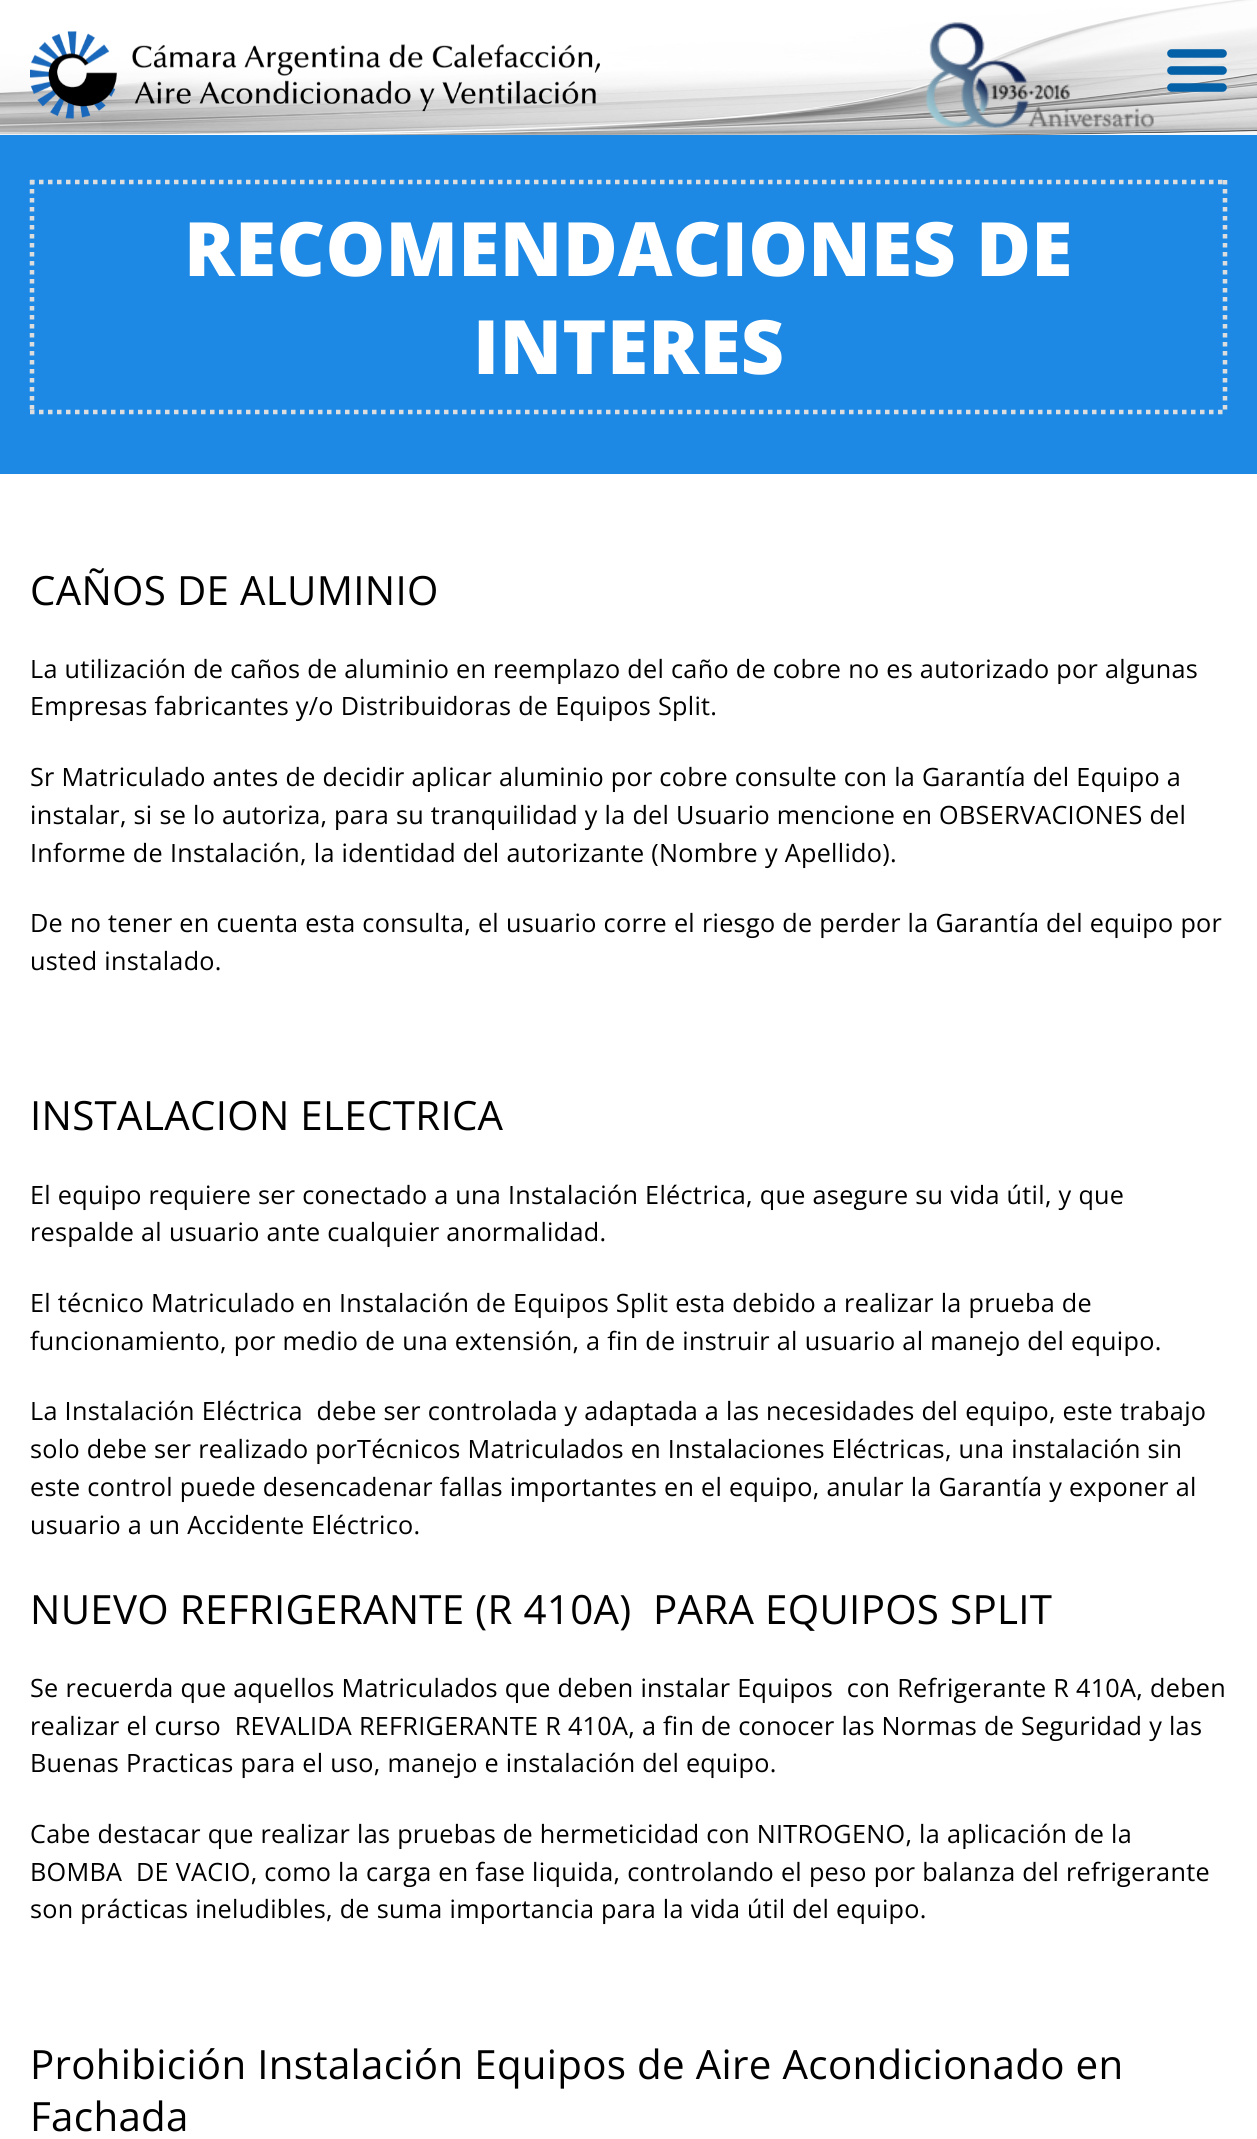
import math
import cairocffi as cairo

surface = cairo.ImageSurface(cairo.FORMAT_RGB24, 1257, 2139)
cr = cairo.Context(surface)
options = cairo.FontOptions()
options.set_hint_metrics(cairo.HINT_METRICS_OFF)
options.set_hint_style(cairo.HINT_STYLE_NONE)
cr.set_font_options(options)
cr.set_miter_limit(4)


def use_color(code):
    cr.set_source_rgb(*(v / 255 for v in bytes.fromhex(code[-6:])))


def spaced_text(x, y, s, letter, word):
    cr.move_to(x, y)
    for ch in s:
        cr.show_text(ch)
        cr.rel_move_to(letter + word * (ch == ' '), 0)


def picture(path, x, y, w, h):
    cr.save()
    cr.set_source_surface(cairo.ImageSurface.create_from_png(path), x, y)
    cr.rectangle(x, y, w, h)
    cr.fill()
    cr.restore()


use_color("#ffffff")
cr.paint()
picture("img1.png", 0, 0, 1257, 135)
picture("img2.png", 30, 31, 570, 88)
picture("img3.png", 1167, 49, 60, 43)
use_color("#1d89e4")
cr.rectangle(0, 135, 1257, 339)
cr.fill()
cr.new_path()
cr.move_to(30, 182)
cr.line_to(1227, 182)
use_color("#dddddd")
cr.set_line_width(4.5)
cr.set_dash([4.5, 4.5])
cr.stroke()
cr.new_path()
cr.move_to(1225, 180)
cr.line_to(1225, 414)
cr.stroke()
cr.new_path()
cr.move_to(30, 412)
cr.line_to(1227, 412)
cr.stroke()
cr.new_path()
cr.move_to(32, 180)
cr.line_to(32, 414)
cr.stroke()
cr.select_font_face("Open Sans ExtraBold")
cr.set_font_size(75)
use_color("#ffffff")
spaced_text(184, 276, "RECOMENDACIONES DE", 0.3, 0)
spaced_text(473, 374, "INTERES", 0.3, 0)
cr.select_font_face("Open Sans")
cr.set_font_size(40.3)
use_color("#000000")
spaced_text(30, 605, "CAÑOS DE ALUMINIO", 0.3, 0)
cr.set_font_size(25.2)
spaced_text(30, 678, "La utilización de caños de aluminio en reemplazo del caño de cobre no es autorizado por algunas", 0.3, 0)
spaced_text(30, 715, "Empresas fabricantes y/o Distribuidoras de Equipos Split.", 0.3, 0)
spaced_text(30, 786, "Sr Matriculado antes de decidir aplicar aluminio por cobre consulte con la Garantía del Equipo a", 0.3, 0)
spaced_text(30, 824, "instalar, si se lo autoriza, para su tranquilidad y la del Usuario mencione en OBSERVACIONES del", 0.3, 0)
spaced_text(30, 862, "Informe de Instalación, la identidad del autorizante (Nombre y Apellido).", 0.3, 0)
spaced_text(30, 932, "De no tener en cuenta esta consulta, el usuario corre el riesgo de perder la Garantía del equipo por", 0.3, 0)
spaced_text(30, 970, "usted instalado.", 0.3, 0)
cr.set_font_size(40.3)
spaced_text(30, 1130, "INSTALACION ELECTRICA", 0.3, 0)
cr.set_font_size(25.2)
spaced_text(30, 1204, "El equipo requiere ser conectado a una Instalación Eléctrica, que asegure su vida útil, y que", 0.3, 0)
spaced_text(30, 1241, "respalde al usuario ante cualquier anormalidad.", 0.3, 0)
spaced_text(30, 1312, "El técnico Matriculado en Instalación de Equipos Split esta debido a realizar la prueba de", 0.3, 0)
spaced_text(30, 1350, "funcionamiento, por medio de una extensión, a fin de instruir al usuario al manejo del equipo.", 0.3, 0)
spaced_text(30, 1420, "La Instalación Eléctrica  debe ser controlada y adaptada a las necesidades del equipo, este trabajo", 0.3, 0)
spaced_text(30, 1458, "solo debe ser realizado porTécnicos Matriculados en Instalaciones Eléctricas, una instalación sin", 0.3, 0)
spaced_text(30, 1496, "este control puede desencadenar fallas importantes en el equipo, anular la Garantía y exponer al", 0.3, 0)
spaced_text(30, 1534, "usuario a un Accidente Eléctrico.", 0.3, 0)
cr.set_font_size(40.3)
spaced_text(30, 1624, "NUEVO REFRIGERANTE (R 410A)  PARA EQUIPOS SPLIT", 0.3, 0)
cr.set_font_size(25.2)
spaced_text(30, 1697, "Se recuerda que aquellos Matriculados que deben instalar Equipos  con Refrigerante R 410A, deben", 0.3, 0)
spaced_text(30, 1735, "realizar el curso  REVALIDA REFRIGERANTE R 410A, a fin de conocer las Normas de Seguridad y las", 0.3, 0)
spaced_text(30, 1772, "Buenas Practicas para el uso, manejo e instalación del equipo.", 0.3, 0)
spaced_text(30, 1843, "Cabe destacar que realizar las pruebas de hermeticidad con NITROGENO, la aplicación de la", 0.3, 0)
spaced_text(30, 1881, "BOMBA  DE VACIO, como la carga en fase liquida, controlando el peso por balanza del refrigerante", 0.3, 0)
spaced_text(30, 1918, "son prácticas ineludibles, de suma importancia para la vida útil del equipo.", 0.3, 0)
cr.set_font_size(40.3)
spaced_text(30, 2079, "Prohibición Instalación Equipos de Aire Acondicionado en", 0.3, 0)
spaced_text(30, 2131, "Fachada", 0.3, 0)
surface.write_to_png("result.png")
